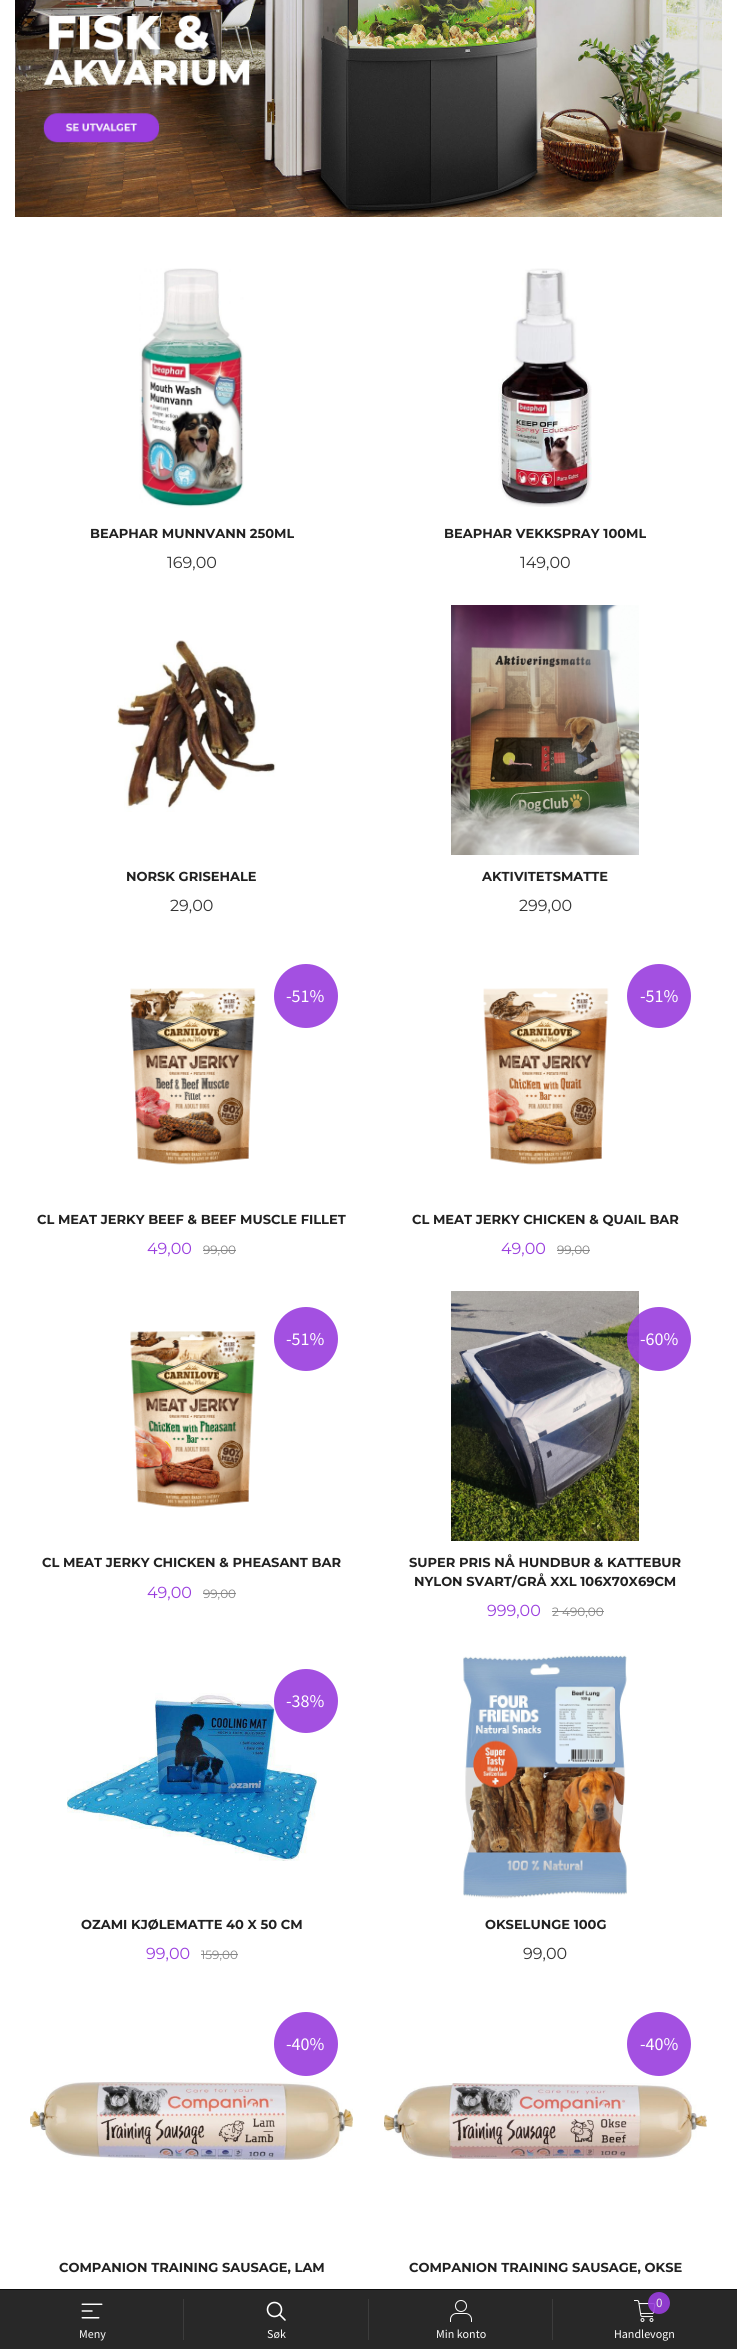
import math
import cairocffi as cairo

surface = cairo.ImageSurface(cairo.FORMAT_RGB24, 737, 2349)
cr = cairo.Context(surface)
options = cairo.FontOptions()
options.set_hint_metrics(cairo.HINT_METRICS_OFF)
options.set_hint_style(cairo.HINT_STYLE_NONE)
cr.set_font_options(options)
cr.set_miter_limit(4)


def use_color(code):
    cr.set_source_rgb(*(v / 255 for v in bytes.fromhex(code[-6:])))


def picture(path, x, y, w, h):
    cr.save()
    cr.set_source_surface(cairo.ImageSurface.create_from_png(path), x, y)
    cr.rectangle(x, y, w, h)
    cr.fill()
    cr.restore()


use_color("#ffffff")
cr.paint()
picture("img1.png", 15, 0, 707, 217)
picture("img2.png", 139, 268, 105, 240)
cr.select_font_face("Montserrat", cairo.FONT_SLANT_NORMAL, cairo.FONT_WEIGHT_BOLD)
cr.set_font_size(13)
use_color("#212121")
cr.move_to(90, 538)
cr.show_text("BEAPHAR MUNNVANN 250ML")
cr.select_font_face("Montserrat")
cr.set_font_size(16)
use_color("#333333")
cr.move_to(167, 568)
cr.show_text("169,00")
picture("img3.png", 498, 268, 94, 239)
cr.select_font_face("Montserrat", cairo.FONT_SLANT_NORMAL, cairo.FONT_WEIGHT_BOLD)
cr.set_font_size(13)
use_color("#212121")
cr.move_to(444, 538)
cr.show_text("BEAPHAR VEKKSPRAY 100ML")
cr.select_font_face("Montserrat")
cr.set_font_size(16)
use_color("#333333")
cr.move_to(520, 568)
cr.show_text("149,00")
picture("img4.png", 117, 640, 159, 172)
cr.select_font_face("Montserrat", cairo.FONT_SLANT_NORMAL, cairo.FONT_WEIGHT_BOLD)
cr.set_font_size(13)
use_color("#212121")
cr.move_to(126, 881)
cr.show_text("NORSK GRISEHALE")
cr.select_font_face("Montserrat")
cr.set_font_size(16)
use_color("#333333")
cr.move_to(170, 911)
cr.show_text("29,00")
picture("img5.png", 451, 605, 188, 250)
cr.select_font_face("Montserrat", cairo.FONT_SLANT_NORMAL, cairo.FONT_WEIGHT_BOLD)
cr.set_font_size(13)
use_color("#212121")
cr.move_to(482, 881)
cr.show_text("AKTIVITETSMATTE")
cr.select_font_face("Montserrat")
cr.set_font_size(16)
use_color("#333333")
cr.move_to(519, 911)
cr.show_text("299,00")
picture("img6.png", 130, 988, 126, 177)
use_color("#a350e1")
cr.arc(306, 996, 32, 0, 2 * math.pi)
cr.fill()
cr.select_font_face("Source Sans Pro")
cr.set_font_size(18)
use_color("#ffffff")
cr.move_to(286, 1002)
cr.show_text("-51%")
cr.select_font_face("Montserrat")
cr.set_font_size(16)
use_color("#993dde")
cr.move_to(147, 1254)
cr.show_text("49,00")
cr.set_font_size(12)
use_color("#858585")
cr.move_to(203, 1254)
cr.show_text("99,00")
cr.rectangle(203, 1250, 33, 1)
cr.fill()
cr.select_font_face("Montserrat", cairo.FONT_SLANT_NORMAL, cairo.FONT_WEIGHT_BOLD)
cr.set_font_size(13)
use_color("#212121")
cr.move_to(37, 1224)
cr.show_text("CL MEAT JERKY BEEF & BEEF MUSCLE FILLET")
picture("img7.png", 483, 988, 126, 177)
use_color("#a350e1")
cr.arc(659, 996, 32, 0, 2 * math.pi)
cr.fill()
cr.select_font_face("Source Sans Pro")
cr.set_font_size(18)
use_color("#ffffff")
cr.move_to(640, 1002)
cr.show_text("-51%")
cr.select_font_face("Montserrat")
cr.set_font_size(16)
use_color("#993dde")
cr.move_to(501, 1254)
cr.show_text("49,00")
cr.set_font_size(12)
use_color("#858585")
cr.move_to(557, 1254)
cr.show_text("99,00")
cr.rectangle(557, 1250, 33, 1)
cr.fill()
cr.select_font_face("Montserrat", cairo.FONT_SLANT_NORMAL, cairo.FONT_WEIGHT_BOLD)
cr.set_font_size(13)
use_color("#212121")
cr.move_to(412, 1224)
cr.show_text("CL MEAT JERKY CHICKEN & QUAIL BAR")
picture("img8.png", 130, 1331, 126, 177)
use_color("#a350e1")
cr.arc(306, 1339, 32, 0, 2 * math.pi)
cr.fill()
cr.select_font_face("Source Sans Pro")
cr.set_font_size(18)
use_color("#ffffff")
cr.move_to(286, 1345)
cr.show_text("-51%")
cr.select_font_face("Montserrat")
cr.set_font_size(16)
use_color("#993dde")
cr.move_to(147, 1598)
cr.show_text("49,00")
cr.set_font_size(12)
use_color("#858585")
cr.move_to(203, 1598)
cr.show_text("99,00")
cr.rectangle(203, 1593, 33, 1)
cr.fill()
cr.select_font_face("Montserrat", cairo.FONT_SLANT_NORMAL, cairo.FONT_WEIGHT_BOLD)
cr.set_font_size(13)
use_color("#212121")
cr.move_to(42, 1567)
cr.show_text("CL MEAT JERKY CHICKEN & PHEASANT BAR")
picture("img9.png", 451, 1291, 188, 250)
cr.set_source_rgba(0.6, 0.239, 0.871, 0.9)
cr.arc(659, 1339, 32, 0, 2 * math.pi)
cr.fill()
cr.select_font_face("Source Sans Pro")
cr.set_font_size(18)
use_color("#ffffff")
cr.move_to(640, 1345)
cr.show_text("-60%")
cr.select_font_face("Montserrat")
cr.set_font_size(16)
use_color("#993dde")
cr.move_to(487, 1616)
cr.show_text("999,00")
cr.set_font_size(12)
use_color("#858585")
cr.move_to(552, 1616)
cr.show_text("2 490,00")
cr.rectangle(552, 1611, 52, 1)
cr.fill()
cr.select_font_face("Montserrat", cairo.FONT_SLANT_NORMAL, cairo.FONT_WEIGHT_BOLD)
cr.set_font_size(13)
use_color("#212121")
cr.move_to(409, 1567)
cr.show_text("SUPER PRIS NÅ HUNDBUR & KATTEBUR")
cr.move_to(414, 1586)
cr.show_text("NYLON SVART/GRÅ XXL 106X70X69CM")
picture("img10.png", 67, 1693, 250, 168)
cr.set_source_rgba(0.6, 0.239, 0.871, 0.9)
cr.arc(306, 1701, 32, 0, 2 * math.pi)
cr.fill()
cr.select_font_face("Source Sans Pro")
cr.set_font_size(18)
use_color("#ffffff")
cr.move_to(286, 1707)
cr.show_text("-38%")
cr.select_font_face("Montserrat")
cr.set_font_size(16)
use_color("#993dde")
cr.move_to(146, 1959)
cr.show_text("99,00")
cr.set_font_size(12)
use_color("#858585")
cr.move_to(201, 1959)
cr.show_text("159,00")
cr.rectangle(201, 1954, 37, 1)
cr.fill()
cr.select_font_face("Montserrat", cairo.FONT_SLANT_NORMAL, cairo.FONT_WEIGHT_BOLD)
cr.set_font_size(13)
use_color("#212121")
cr.move_to(81, 1929)
cr.show_text("OZAMI KJØLEMATTE 40 X 50 CM")
picture("img11.png", 463, 1653, 164, 246)
cr.move_to(485, 1929)
cr.show_text("OKSELUNGE 100G")
cr.select_font_face("Montserrat")
cr.set_font_size(16)
use_color("#333333")
cr.move_to(523, 1959)
cr.show_text("99,00")
use_color("#a350e1")
cr.new_path()
cr.arc(306, 2044, 32, 0, 2 * math.pi)
cr.fill()
cr.select_font_face("Source Sans Pro")
cr.set_font_size(18)
use_color("#ffffff")
cr.move_to(286, 2050)
cr.show_text("-40%")
picture("img12.png", 30, 2082, 323, 78)
cr.select_font_face("Montserrat", cairo.FONT_SLANT_NORMAL, cairo.FONT_WEIGHT_BOLD)
cr.set_font_size(13)
use_color("#212121")
cr.move_to(59, 2272)
cr.show_text("COMPANION TRAINING SAUSAGE, LAM")
use_color("#a350e1")
cr.new_path()
cr.arc(659, 2044, 32, 0, 2 * math.pi)
cr.fill()
cr.select_font_face("Source Sans Pro")
cr.set_font_size(18)
use_color("#ffffff")
cr.move_to(640, 2050)
cr.show_text("-40%")
picture("img13.png", 384, 2083, 323, 76)
cr.select_font_face("Montserrat", cairo.FONT_SLANT_NORMAL, cairo.FONT_WEIGHT_BOLD)
cr.set_font_size(13)
use_color("#212121")
cr.move_to(409, 2272)
cr.show_text("COMPANION TRAINING SAUSAGE, OKSE")
use_color("#282828")
cr.rectangle(0, 2290, 737, 59)
cr.fill()
use_color("#0e0e0e")
cr.rectangle(0, 2289, 737, 1)
cr.fill()
picture("img14.png", 81, 2303, 22, 16)
cr.select_font_face("Source Sans Pro")
cr.set_font_size(12)
use_color("#ffffff")
cr.move_to(79, 2338)
cr.show_text("Meny")
use_color("#3c3c3c")
cr.rectangle(183, 2299, 1, 41)
cr.fill()
cr.arc(274.5, 2309.5, 7, 0, 2 * math.pi)
use_color("#ffffff")
cr.set_line_width(1.6)
cr.stroke()
cr.new_path()
cr.move_to(285, 2320)
cr.line_to(279.5, 2314.5)
cr.set_line_cap(cairo.LINE_CAP_ROUND)
cr.stroke()
cr.move_to(267, 2338)
cr.show_text("Søk")
use_color("#3c3c3c")
cr.rectangle(368, 2299, 1, 41)
cr.fill()
picture("img15.png", 450, 2300, 22, 22)
use_color("#ffffff")
cr.move_to(436, 2338)
cr.show_text("Min konto")
use_color("#3c3c3c")
cr.rectangle(552, 2299, 1, 41)
cr.fill()
picture("img16.png", 634, 2300, 22, 22)
cr.set_source_rgba(0.6, 0.239, 0.871, 0.9)
cr.arc(659, 2303, 11, 0, 2 * math.pi)
cr.fill()
cr.set_font_size(13)
use_color("#eaeaea")
cr.move_to(656, 2307)
cr.show_text("0")
cr.set_font_size(12)
use_color("#ffffff")
cr.move_to(614, 2338)
cr.show_text("Handlevogn")
surface.write_to_png("result.png")
